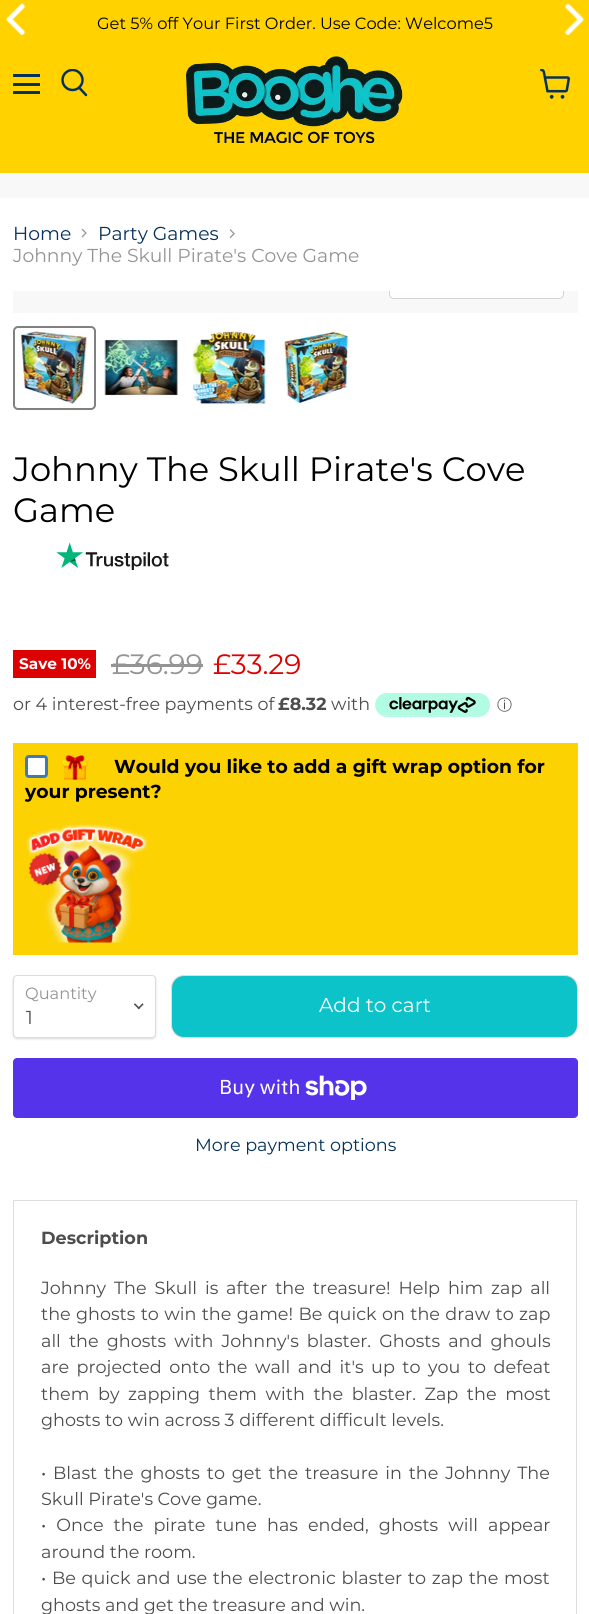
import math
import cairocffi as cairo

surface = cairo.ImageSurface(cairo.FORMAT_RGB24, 589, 1614)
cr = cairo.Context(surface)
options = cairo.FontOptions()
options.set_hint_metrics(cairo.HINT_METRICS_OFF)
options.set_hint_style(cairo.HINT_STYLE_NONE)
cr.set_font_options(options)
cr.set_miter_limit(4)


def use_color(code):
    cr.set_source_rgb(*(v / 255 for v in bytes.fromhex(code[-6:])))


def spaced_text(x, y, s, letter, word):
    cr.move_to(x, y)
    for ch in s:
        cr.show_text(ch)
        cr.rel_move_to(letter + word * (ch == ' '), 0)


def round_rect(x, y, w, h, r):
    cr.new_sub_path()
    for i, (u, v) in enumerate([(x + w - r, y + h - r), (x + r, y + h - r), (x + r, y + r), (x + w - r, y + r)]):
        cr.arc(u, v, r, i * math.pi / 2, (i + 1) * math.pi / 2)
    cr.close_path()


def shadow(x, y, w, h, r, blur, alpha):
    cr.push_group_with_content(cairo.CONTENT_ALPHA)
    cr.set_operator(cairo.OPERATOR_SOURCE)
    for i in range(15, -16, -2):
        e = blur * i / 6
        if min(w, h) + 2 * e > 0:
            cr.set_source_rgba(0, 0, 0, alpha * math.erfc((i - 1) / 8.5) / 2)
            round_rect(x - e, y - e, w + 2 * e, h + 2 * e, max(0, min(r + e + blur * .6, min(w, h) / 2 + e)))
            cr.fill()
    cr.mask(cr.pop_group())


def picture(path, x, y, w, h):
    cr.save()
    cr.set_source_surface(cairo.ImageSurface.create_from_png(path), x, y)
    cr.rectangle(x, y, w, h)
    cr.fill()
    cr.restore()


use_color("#ffffff")
cr.paint()
use_color("#ffd200")
cr.rectangle(0, 0, 589, 173)
cr.fill()
picture("img1.png", 5, 3, 21, 32)
cr.select_font_face("Montserrat")
cr.set_font_size(16.25)
use_color("#000000")
cr.move_to(97, 29)
cr.show_text("Get 5% off Your First Order. Use Code: Welcome5")
picture("img2.png", 564, 3, 21, 32)
use_color("#05315a")
cr.rectangle(13, 74, 27, 3)
cr.fill()
cr.rectangle(13, 83, 27, 3)
cr.fill()
cr.rectangle(13, 91, 27, 3)
cr.fill()
cr.new_path()
cr.move_to(86, 95)
cr.line_to(79.5, 88)
cr.set_line_width(2.5)
cr.set_line_cap(cairo.LINE_CAP_ROUND)
cr.stroke()
cr.save()
cr.rectangle(60, 69, 29, 30)
cr.clip()
cr.arc(72.5, 80, 10, 0, 2 * math.pi)
cr.set_line_cap(cairo.LINE_CAP_BUTT)
cr.stroke()
cr.restore()
picture("img3.png", 185, 56, 218, 88)
picture("img4.png", 540, 69, 30, 30)
use_color("#f8f8f8")
cr.rectangle(0, 173, 589, 25)
cr.fill()
cr.set_font_size(18.75)
use_color("#05315a")
cr.move_to(13, 240)
cr.show_text("Home")
picture("img5.png", 81, 228, 6, 10)
cr.move_to(98, 240)
cr.show_text("Party Games")
picture("img6.png", 229, 229, 6, 10)
use_color("#949494")
cr.move_to(13, 262)
cr.show_text("Johnny The Skull Pirate's Cove Game")
use_color("#f8f8f8")
cr.rectangle(13, 291, 565, 22)
cr.fill()
cr.save()
cr.rectangle(13, 291, 565, 22)
cr.clip()
round_rect(389.5, 263.5, 174, 35, 4.5)
use_color("#d3d3d3")
cr.set_line_width(1)
cr.set_line_cap(cairo.LINE_CAP_BUTT)
cr.stroke()
cr.restore()
cr.set_source_rgba(1, 1, 1, 0.9)
cr.new_path()
cr.move_to(390, 291)
cr.line_to(563, 291)
cr.line_to(563, 294)
cr.curve_to(563, 296, 561, 298, 559, 298)
cr.line_to(394, 298)
cr.curve_to(392, 298, 390, 296, 390, 294)
cr.close_path()
cr.fill()
round_rect(14, 327, 81, 82, 4)
use_color("#818181")
cr.set_line_width(2)
cr.set_line_cap(cairo.LINE_CAP_BUTT)
cr.stroke()
picture("img7.png", 16, 330, 72, 74)
picture("img8.png", 104, 338, 74, 60)
picture("img9.png", 191, 330, 76, 75)
picture("img10.png", 279, 330, 72, 73)
cr.set_font_size(33.75)
use_color("#000000")
cr.move_to(13, 481)
cr.show_text("Johnny The Skull Pirate's Cove")
cr.move_to(13, 522)
cr.show_text("Game")
picture("img11.png", 56, 542, 113, 28)
use_color("#de0101")
cr.rectangle(13, 650, 83, 28)
cr.fill()
cr.select_font_face("Montserrat", cairo.FONT_SLANT_NORMAL, cairo.FONT_WEIGHT_BOLD)
cr.set_font_size(15.25)
use_color("#ffffff")
cr.move_to(19, 669)
cr.show_text("Save 10%")
cr.select_font_face("Montserrat")
cr.set_font_size(28)
use_color("#949494")
cr.move_to(112, 674)
cr.show_text("£36.99")
cr.rectangle(111, 664, 92, 3)
cr.fill()
use_color("#de0101")
cr.move_to(213, 674)
cr.show_text("£33.29")
cr.set_font_size(17.5)
use_color("#4d4d4d")
cr.move_to(13, 710)
cr.show_text("or 4 interest-free payments of")
cr.select_font_face("Montserrat", cairo.FONT_SLANT_NORMAL, cairo.FONT_WEIGHT_BOLD)
cr.move_to(278, 710)
cr.show_text("£8.32")
cr.select_font_face("Montserrat")
cr.move_to(331, 710)
cr.show_text("with")
picture("img12.png", 375, 692, 116, 25)
cr.select_font_face("WenQuanYi Zen Hei Medium")
cr.set_font_size(15)
cr.move_to(497, 710)
cr.show_text("ⓘ")
use_color("#fcd203")
cr.rectangle(13, 743, 565, 212)
cr.fill()
use_color("#ffffff")
round_rect(26.5, 756.5, 20, 20, 2.5)
cr.fill_preserve()
use_color("#407ab1")
cr.set_line_width(3)
cr.stroke()
picture("img13.png", 63, 755, 25, 25)
cr.select_font_face("Montserrat", cairo.FONT_SLANT_NORMAL, cairo.FONT_WEIGHT_BOLD)
cr.set_font_size(18.75)
use_color("#000000")
cr.move_to(114, 773)
cr.show_text("Would you like to add a gift wrap option for")
cr.move_to(25, 798)
cr.show_text("your present?")
picture("img14.png", 26, 820, 122, 123)
use_color("#000000")
shadow(13, 976, 143, 63, 4, 1, 0.15)
use_color("#ffffff")
round_rect(13.5, 975.5, 142, 62, 3.5)
cr.fill_preserve()
use_color("#dddddd")
cr.set_line_width(1)
cr.stroke()
cr.select_font_face("Montserrat")
cr.set_font_size(16.25)
use_color("#949494")
cr.move_to(25, 999)
cr.show_text("Quantity")
picture("img15.png", 134, 1003, 10, 7)
cr.set_font_size(18.75)
use_color("#4d4d4d")
cr.move_to(26, 1024)
cr.show_text("1")
use_color("#0cc3c9")
round_rect(171.5, 975.5, 406, 62, 12.5)
cr.fill_preserve()
use_color("#dddddd")
cr.stroke()
cr.set_font_size(20)
use_color("#ffffff")
cr.move_to(319, 1012)
cr.show_text("Add to cart")
use_color("#5433eb")
round_rect(13, 1058, 565, 60, 4)
cr.fill()
cr.select_font_face("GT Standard")
use_color("#ffffff")
cr.move_to(219, 1094)
cr.show_text("Buy with")
picture("img16.png", 305, 1075, 62, 25)
cr.select_font_face("Montserrat")
cr.set_font_size(17.6)
use_color("#05315a")
cr.move_to(195, 1151)
cr.show_text("More payment options")
use_color("#dddddd")
cr.rectangle(13, 1200, 565, 1)
cr.fill()
cr.rectangle(576, 1200, 1, 414)
cr.fill()
cr.rectangle(13, 1200, 1, 414)
cr.fill()
cr.select_font_face("Montserrat", cairo.FONT_SLANT_NORMAL, cairo.FONT_WEIGHT_BOLD)
use_color("#4d4d4d")
cr.move_to(41, 1244)
cr.show_text("Description")
cr.select_font_face("Montserrat")
spaced_text(41, 1294, "Johnny The Skull is after the treasure! Help him zap all", 0, 3.25)
spaced_text(41, 1320, "the ghosts to win the game! Be quick on the draw to zap", 0, 0.75)
spaced_text(41, 1347, "all the ghosts with Johnny's blaster. Ghosts and ghouls", 0, 3.5)
spaced_text(41, 1373, "are projected onto the wall and it's up to you to defeat", 0, 2.9)
spaced_text(41, 1400, "them by zapping them with the blaster. Zap the most", 0, 4)
cr.move_to(41, 1426)
cr.show_text("ghosts to win across 3 different difficult levels.")
spaced_text(41, 1479, "• Blast the ghosts to get the treasure in the Johnny The", 0, 2.25)
cr.move_to(41, 1505)
cr.show_text("Skull Pirate's Cove game.")
spaced_text(41, 1531, "• Once the pirate tune has ended, ghosts will appear", 0, 5.5)
cr.move_to(41, 1558)
cr.show_text("around the room.")
spaced_text(41, 1584, "• Be quick and use the electronic blaster to zap the most", 0, 1.1)
cr.move_to(41, 1611)
cr.show_text("ghosts and get the treasure and win.")
surface.write_to_png("result.png")
